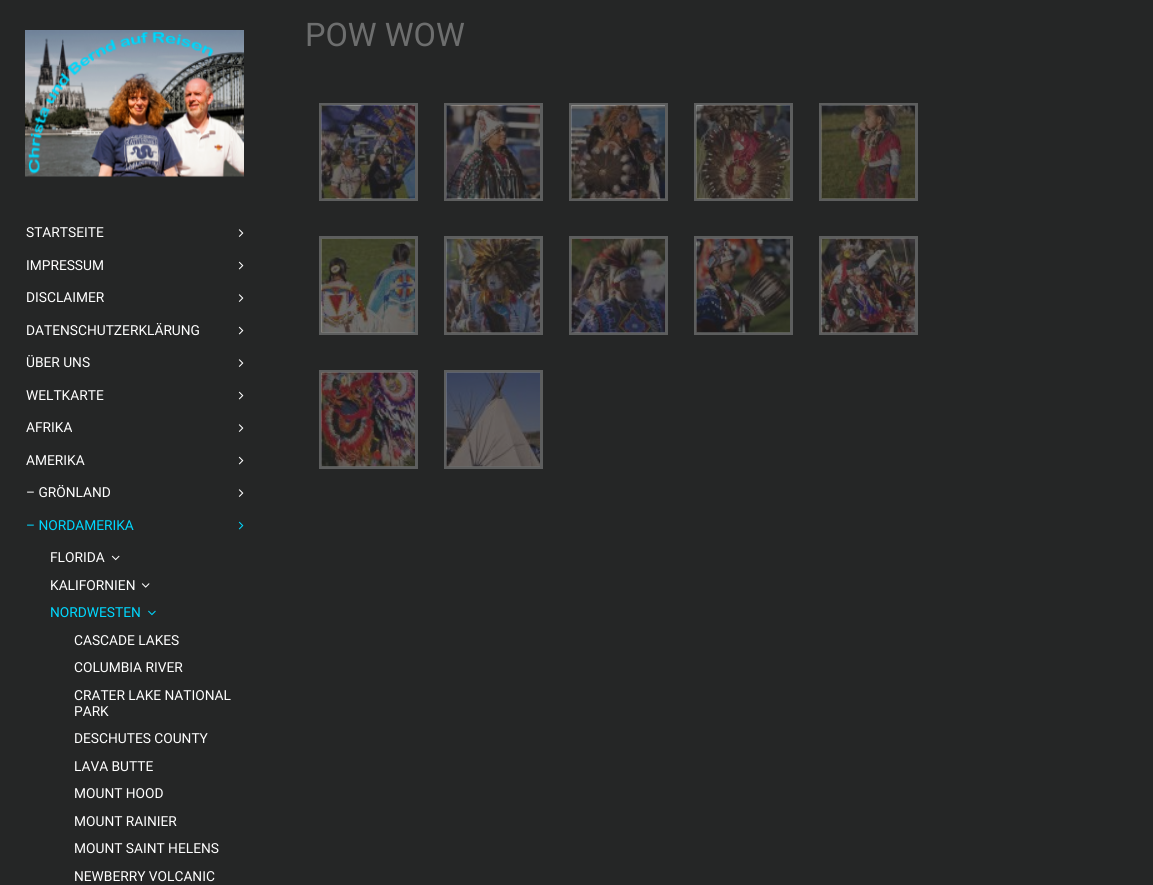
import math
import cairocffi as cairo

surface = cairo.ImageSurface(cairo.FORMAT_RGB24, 1153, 885)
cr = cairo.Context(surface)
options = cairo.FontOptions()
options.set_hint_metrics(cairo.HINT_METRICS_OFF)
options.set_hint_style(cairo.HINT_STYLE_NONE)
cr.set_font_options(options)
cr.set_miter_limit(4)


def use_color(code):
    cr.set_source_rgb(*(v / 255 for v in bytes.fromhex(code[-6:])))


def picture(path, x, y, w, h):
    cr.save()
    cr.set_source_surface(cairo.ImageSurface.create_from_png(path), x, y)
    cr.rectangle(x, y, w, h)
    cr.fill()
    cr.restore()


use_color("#252626")
cr.paint()
cr.select_font_face("Roboto")
cr.set_font_size(32.5)
use_color("#6d6e6e")
cr.move_to(305, 46)
cr.show_text("POW WOW")
cr.rectangle(320.5, 104.5, 96, 95)
use_color("#5d5e5e")
cr.set_line_width(3)
cr.stroke()
picture("img1.png", 321, 105, 94, 94)
cr.rectangle(445.5, 104.5, 96, 95)
cr.stroke()
picture("img2.png", 446, 105, 94, 94)
cr.rectangle(570.5, 104.5, 96, 95)
cr.stroke()
picture("img3.png", 571, 105, 94, 94)
cr.rectangle(695.5, 104.5, 96, 95)
cr.stroke()
picture("img4.png", 696, 105, 94, 94)
cr.rectangle(820.5, 104.5, 96, 95)
cr.stroke()
picture("img5.png", 821, 105, 94, 94)
cr.rectangle(320.5, 237.5, 96, 96)
cr.stroke()
picture("img6.png", 321, 238, 94, 95)
cr.rectangle(445.5, 237.5, 96, 96)
cr.stroke()
picture("img7.png", 446, 238, 94, 95)
cr.rectangle(570.5, 237.5, 96, 96)
cr.stroke()
picture("img8.png", 571, 238, 94, 95)
cr.rectangle(695.5, 237.5, 96, 96)
cr.stroke()
picture("img9.png", 696, 238, 94, 95)
cr.rectangle(820.5, 237.5, 96, 96)
cr.stroke()
picture("img10.png", 821, 238, 94, 95)
cr.rectangle(320.5, 371.5, 96, 96)
cr.stroke()
picture("img11.png", 321, 372, 94, 95)
cr.rectangle(445.5, 371.5, 96, 96)
cr.stroke()
picture("img12.png", 446, 372, 94, 95)
picture("img13.png", 25, 30, 219, 147)
cr.set_font_size(13.75)
use_color("#ffffff")
cr.move_to(26, 237)
cr.show_text("STARTSEITE")
picture("img14.png", 238, 229, 6, 8)
cr.move_to(26, 270)
cr.show_text("IMPRESSUM")
picture("img15.png", 238, 261, 6, 9)
cr.move_to(26, 302)
cr.show_text("DISCLAIMER")
picture("img14.png", 238, 294, 6, 8)
cr.move_to(26, 335)
cr.show_text("DATENSCHUTZERKLÄRUNG")
picture("img15.png", 238, 326, 6, 9)
cr.move_to(26, 367)
cr.show_text("ÜBER UNS")
picture("img14.png", 238, 359, 6, 8)
cr.move_to(26, 400)
cr.show_text("WELTKARTE")
picture("img15.png", 238, 391, 6, 9)
cr.move_to(26, 432)
cr.show_text("AFRIKA")
picture("img14.png", 238, 424, 6, 8)
cr.move_to(26, 465)
cr.show_text("AMERIKA")
picture("img15.png", 238, 456, 6, 9)
cr.move_to(26, 497)
cr.show_text("– GRÖNLAND")
picture("img14.png", 238, 489, 6, 8)
use_color("#00d8ff")
cr.move_to(26, 530)
cr.show_text("– NORDAMERIKA")
picture("img16.png", 238, 521, 6, 9)
use_color("#ffffff")
cr.move_to(50, 562)
cr.show_text("FLORIDA")
picture("img17.png", 111, 555, 9, 6)
cr.move_to(50, 590)
cr.show_text("KALIFORNIEN")
picture("img18.png", 141, 583, 9, 5)
use_color("#00d8ff")
cr.move_to(50, 617)
cr.show_text("NORDWESTEN")
picture("img19.png", 148, 610, 8, 6)
use_color("#ffffff")
cr.move_to(74, 645)
cr.show_text("CASCADE LAKES")
cr.move_to(74, 672)
cr.show_text("COLUMBIA RIVER")
cr.move_to(74, 700)
cr.show_text("CRATER LAKE NATIONAL")
cr.move_to(74, 716)
cr.show_text("PARK")
cr.move_to(74, 743)
cr.show_text("DESCHUTES COUNTY")
cr.move_to(74, 771)
cr.show_text("LAVA BUTTE")
cr.move_to(74, 798)
cr.show_text("MOUNT HOOD")
cr.move_to(74, 826)
cr.show_text("MOUNT RAINIER")
cr.move_to(74, 853)
cr.show_text("MOUNT SAINT HELENS")
cr.move_to(74, 881)
cr.show_text("NEWBERRY VOLCANIC")
surface.write_to_png("result.png")
